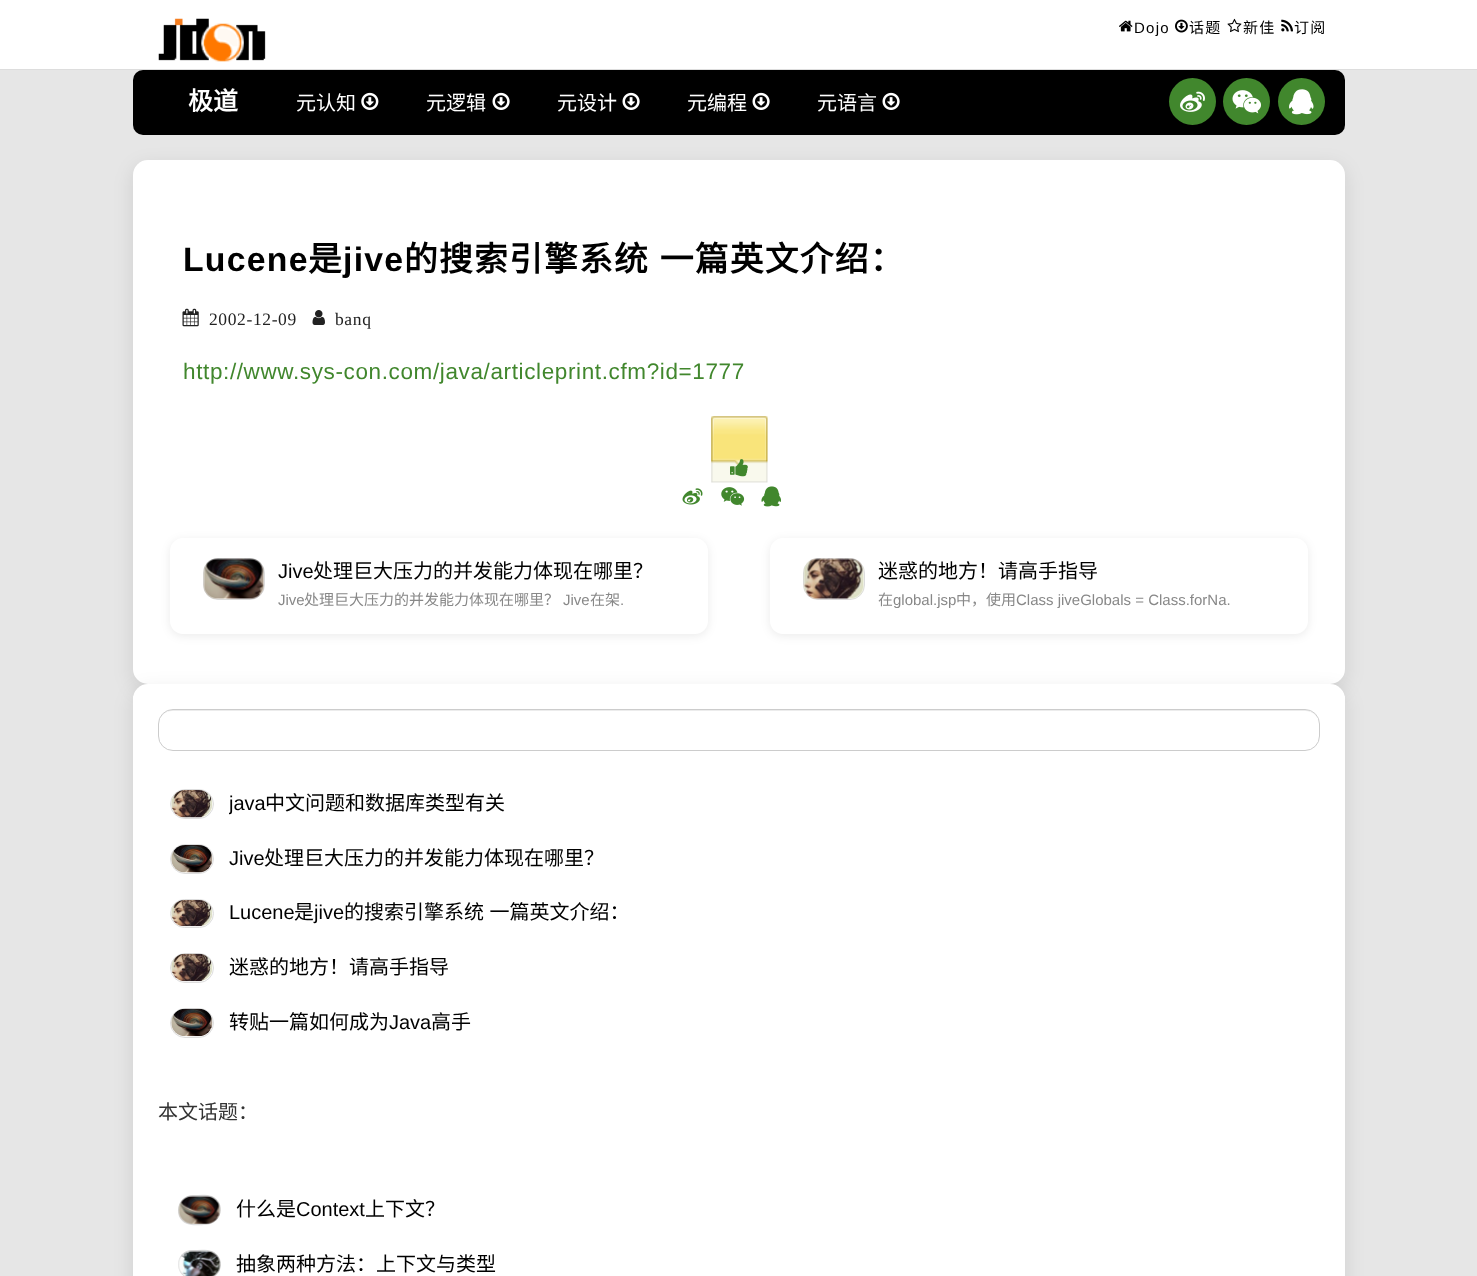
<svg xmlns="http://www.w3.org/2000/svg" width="1477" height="1276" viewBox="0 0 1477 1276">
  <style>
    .t1 { font: 15px Liberation Sans; letter-spacing: 1.25px; fill: #000; }
    .t2 { font: 15px Noto Sans CJK SC; letter-spacing: 1.25px; fill: #000; }
    .t3 { font: bold 25px Noto Sans CJK SC; fill: #fff; }
    .t4 { font: 20px Noto Sans CJK SC; fill: #fff; }
    .t5 { font: bold 33.75px Liberation Sans; letter-spacing: 1.25px; fill: #000; }
    .t6 { font: bold 33.75px Noto Sans CJK SC; letter-spacing: 1.25px; fill: #000; }
    .t7 { font: 17.5px Liberation Serif; letter-spacing: 0.62px; fill: #222; }
    .t8 { font: 22.5px Liberation Sans; letter-spacing: 0.62px; fill: #41872d; }
    .t9 { font: 20px Liberation Sans; fill: #000; }
    .t10 { font: 20px Noto Sans CJK SC; fill: #000; }
    .t11 { font: 15px Liberation Sans; fill: #888; }
    .t12 { font: 15px Noto Sans CJK SC; fill: #888; }
    .t13 { font: 20px Noto Sans CJK SC; fill: #333; }
  </style>
  <defs>
    <clipPath id="clip1"><path d="M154 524H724V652H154ZM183 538H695C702 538 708 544 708 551V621C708 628 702 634 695 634H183C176 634 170 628 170 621V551C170 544 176 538 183 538Z" clip-rule="evenodd"/></clipPath>
    <clipPath id="clip2"><path d="M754 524H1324V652H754ZM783 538H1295C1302 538 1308 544 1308 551V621C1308 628 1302 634 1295 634H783C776 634 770 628 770 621V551C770 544 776 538 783 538Z" clip-rule="evenodd"/></clipPath>
    <clipPath id="clip3"><rect x="133" y="684" width="1212" height="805" rx="15"/></clipPath>
    <clipPath id="clip4"><rect x="229" y="790" width="1079" height="28"/></clipPath>
  </defs>
  <rect width="100%" height="100%" fill="#e6e6e6"/>
  <rect x="0" y="0" width="1477" height="69" fill="#fff"/>
  <rect x="0" y="69" width="1477" height="1" fill="#ddd"/>
  <image x="158" y="18" width="108" height="44" href="images/1.png"/>
  <image x="1119" y="20" width="14" height="12" href="images/2.png"/>
  <text x="1134" y="33" class="t1">Dojo</text>
  <image x="1175" y="19" width="13" height="14" href="images/3.png"/>
  <text x="1189" y="33" class="t2">话题</text>
  <image x="1227" y="18" width="15" height="15" href="images/4.png"/>
  <text x="1243" y="33" class="t2">新佳</text>
  <image x="1281" y="19" width="12" height="13" href="images/5.png"/>
  <text x="1294" y="33" class="t2">订阅</text>
  <rect x="133" y="70" width="1212" height="65" rx="10" fill="#000"/>
  <text x="188" y="110" class="t3">极道</text>
  <text x="296" y="110" class="t4">元认知</text>
  <image x="361" y="92" width="18" height="18" href="images/6.png"/>
  <text x="426" y="110" class="t4">元逻辑</text>
  <image x="492" y="92" width="18" height="18" href="images/7.png"/>
  <text x="557" y="110" class="t4">元设计</text>
  <image x="622" y="92" width="18" height="18" href="images/7.png"/>
  <text x="687" y="110" class="t4">元编程</text>
  <image x="752" y="92" width="18" height="18" href="images/7.png"/>
  <text x="817" y="110" class="t4">元语言</text>
  <image x="882" y="92" width="18" height="18" href="images/7.png"/>
  <circle cx="1192.5" cy="101.5" r="23.5" fill="#41872d"/>
  <image x="1180" y="91" width="25" height="21" href="images/8.png"/>
  <circle cx="1246.5" cy="101.5" r="23.5" fill="#41872d"/>
  <image x="1232" y="90" width="29" height="24" href="images/9.png"/>
  <circle cx="1301.5" cy="101.5" r="23.5" fill="#41872d"/>
  <image x="1289" y="89" width="25" height="26" href="images/10.png"/>
  <rect x="133" y="166" width="1212" height="524" rx="15" fill="#0000001a" filter="blur(9.5px)"/>
  <rect x="133" y="160" width="1212" height="524" rx="15" fill="#fff"/>
  <text x="183" y="271" class="t5">Lucene</text>
  <text x="308" y="271" class="t6">是</text>
  <text x="343" y="271" class="t5">jive</text>
  <text x="404" y="271" word-spacing="2" class="t6">的搜索引擎系统 一篇英文介绍：</text>
  <image x="182" y="308" width="17" height="19" href="images/11.png"/>
  <text x="209" y="325" class="t7">2002-12-09</text>
  <image x="312" y="310" width="13" height="15" href="images/12.png"/>
  <text x="335" y="325" class="t7">banq</text>
  <text x="183" y="379" class="t8">http://www.sys-con.com/java/articleprint.cfm?id=1777</text>
  <image x="711" y="416" width="57" height="67" href="images/13.png"/>
  <image x="730" y="459" width="18" height="18" href="images/14.png"/>
  <image x="682" y="488" width="21" height="17" href="images/15.png"/>
  <image x="721" y="487" width="24" height="19" href="images/16.png"/>
  <image x="761" y="486" width="20" height="21" href="images/17.png"/>
  <g clip-path="url(#clip1)">
    <rect x="170" y="540" width="538" height="96" rx="13" fill="#00000014" filter="blur(5px)"/>
  </g>
  <rect x="203.5" y="558.5" width="61" height="41" rx="14.5" fill="none" stroke="#ddd"/>
  <image x="203" y="558" width="61" height="42" href="images/18.png"/>
  <text x="278" y="578" class="t9">Jive</text>
  <text x="313" y="578" class="t10">处理巨大压力的并发能力体现在哪里？</text>
  <text x="278" y="605" class="t11">Jive</text>
  <text x="304" y="605" class="t12">处理巨大压力的并发能力体现在哪里？</text>
  <text x="563" y="605" class="t11">Jive</text>
  <text x="590" y="605" class="t12">在架</text>
  <text x="620" y="605" class="t11">.</text>
  <g clip-path="url(#clip2)">
    <rect x="770" y="540" width="538" height="96" rx="13" fill="#00000014" filter="blur(5px)"/>
  </g>
  <rect x="803.5" y="558.5" width="61" height="41" rx="14.5" fill="none" stroke="#ddd"/>
  <image x="803" y="558" width="61" height="42" href="images/19.png"/>
  <text x="878" y="578" class="t10">迷惑的地方！请高手指导</text>
  <text x="878" y="605" class="t12">在</text>
  <text x="893" y="605" class="t11">global.jsp</text>
  <text x="956" y="605" class="t12">中，使用</text>
  <text x="1016" y="605" class="t11">Class jiveGlobals = Class.forNa.</text>
  <rect x="133" y="690" width="1212" height="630" rx="15" fill="#0000001a" filter="blur(9.5px)"/>
  <rect x="133" y="684" width="1212" height="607" rx="15" fill="#fff"/>
  <g clip-path="url(#clip3)">
    <rect x="133" y="696" width="1212" height="68" fill="#fff"/>
  </g>
  <path d="M172 711H1305C1313 711 1319 717 1319 725C1319 717 1313 710 1305 710H173C165 710 159 717 159 725C159 717 165 711 172 711Z" fill="#ececec"/>
  <rect x="158.5" y="709.5" width="1161" height="41" rx="14.5" fill="none" stroke="#ccc"/>
  <rect x="170.5" y="789.5" width="43" height="29" rx="14.5" fill="none" stroke="#ddd"/>
  <image x="171" y="790" width="42" height="28" href="images/20.png"/>
  <g clip-path="url(#clip4)">
    <text x="229" y="810" class="t9">java</text>
  </g>
  <text x="265" y="810" class="t10">中文问题和数据库类型有关</text>
  <rect x="170.5" y="844.5" width="43" height="29" rx="14.5" fill="none" stroke="#ddd"/>
  <image x="171" y="845" width="42" height="28" href="images/21.png"/>
  <text x="229" y="865" class="t9">Jive</text>
  <text x="264" y="865" class="t10">处理巨大压力的并发能力体现在哪里？</text>
  <rect x="170.5" y="899.5" width="43" height="28" rx="14" fill="none" stroke="#ddd"/>
  <image x="171" y="900" width="42" height="27" href="images/22.png"/>
  <text x="229" y="919" class="t9">Lucene</text>
  <text x="294" y="919" class="t10">是</text>
  <text x="314" y="919" class="t9">jive</text>
  <text x="344" y="919" word-spacing="1" class="t10">的搜索引擎系统 一篇英文介绍：</text>
  <rect x="170.5" y="953.5" width="43" height="29" rx="14.5" fill="none" stroke="#ddd"/>
  <image x="171" y="953" width="42" height="29" href="images/23.png"/>
  <text x="229" y="974" class="t10">迷惑的地方！请高手指导</text>
  <rect x="170.5" y="1008.5" width="43" height="29" rx="14.5" fill="none" stroke="#ddd"/>
  <image x="171" y="1008" width="42" height="29" href="images/24.png"/>
  <text x="229" y="1029" class="t10">转贴一篇如何成为</text>
  <text x="389" y="1029" class="t9">Java</text>
  <text x="431" y="1029" class="t10">高手</text>
  <text x="158" y="1119" class="t13">本文话题：</text>
  <path d="M193 1195C199 1195 206 1194 212 1196C227 1203 222 1224 206 1225C201 1225 192 1226 187 1224C172 1218 177 1195 193 1195Z" fill="#ddd"/>
  <image x="178" y="1195" width="43" height="29" href="images/25.png"/>
  <text x="236" y="1216" class="t10">什么是</text>
  <text x="296" y="1216" class="t9">Context</text>
  <text x="365" y="1216" class="t10">上下文？</text>
  <path d="M192 1250C199 1250 206 1249 212 1251C224 1256 224 1273 212 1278C207 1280 198 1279 192 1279C173 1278 174 1250 192 1250Z" fill="#ddd"/>
  <image x="178" y="1250" width="43" height="26" href="images/26.png"/>
  <text x="236" y="1271" class="t10">抽象两种方法：上下文与类型</text>
</svg>
